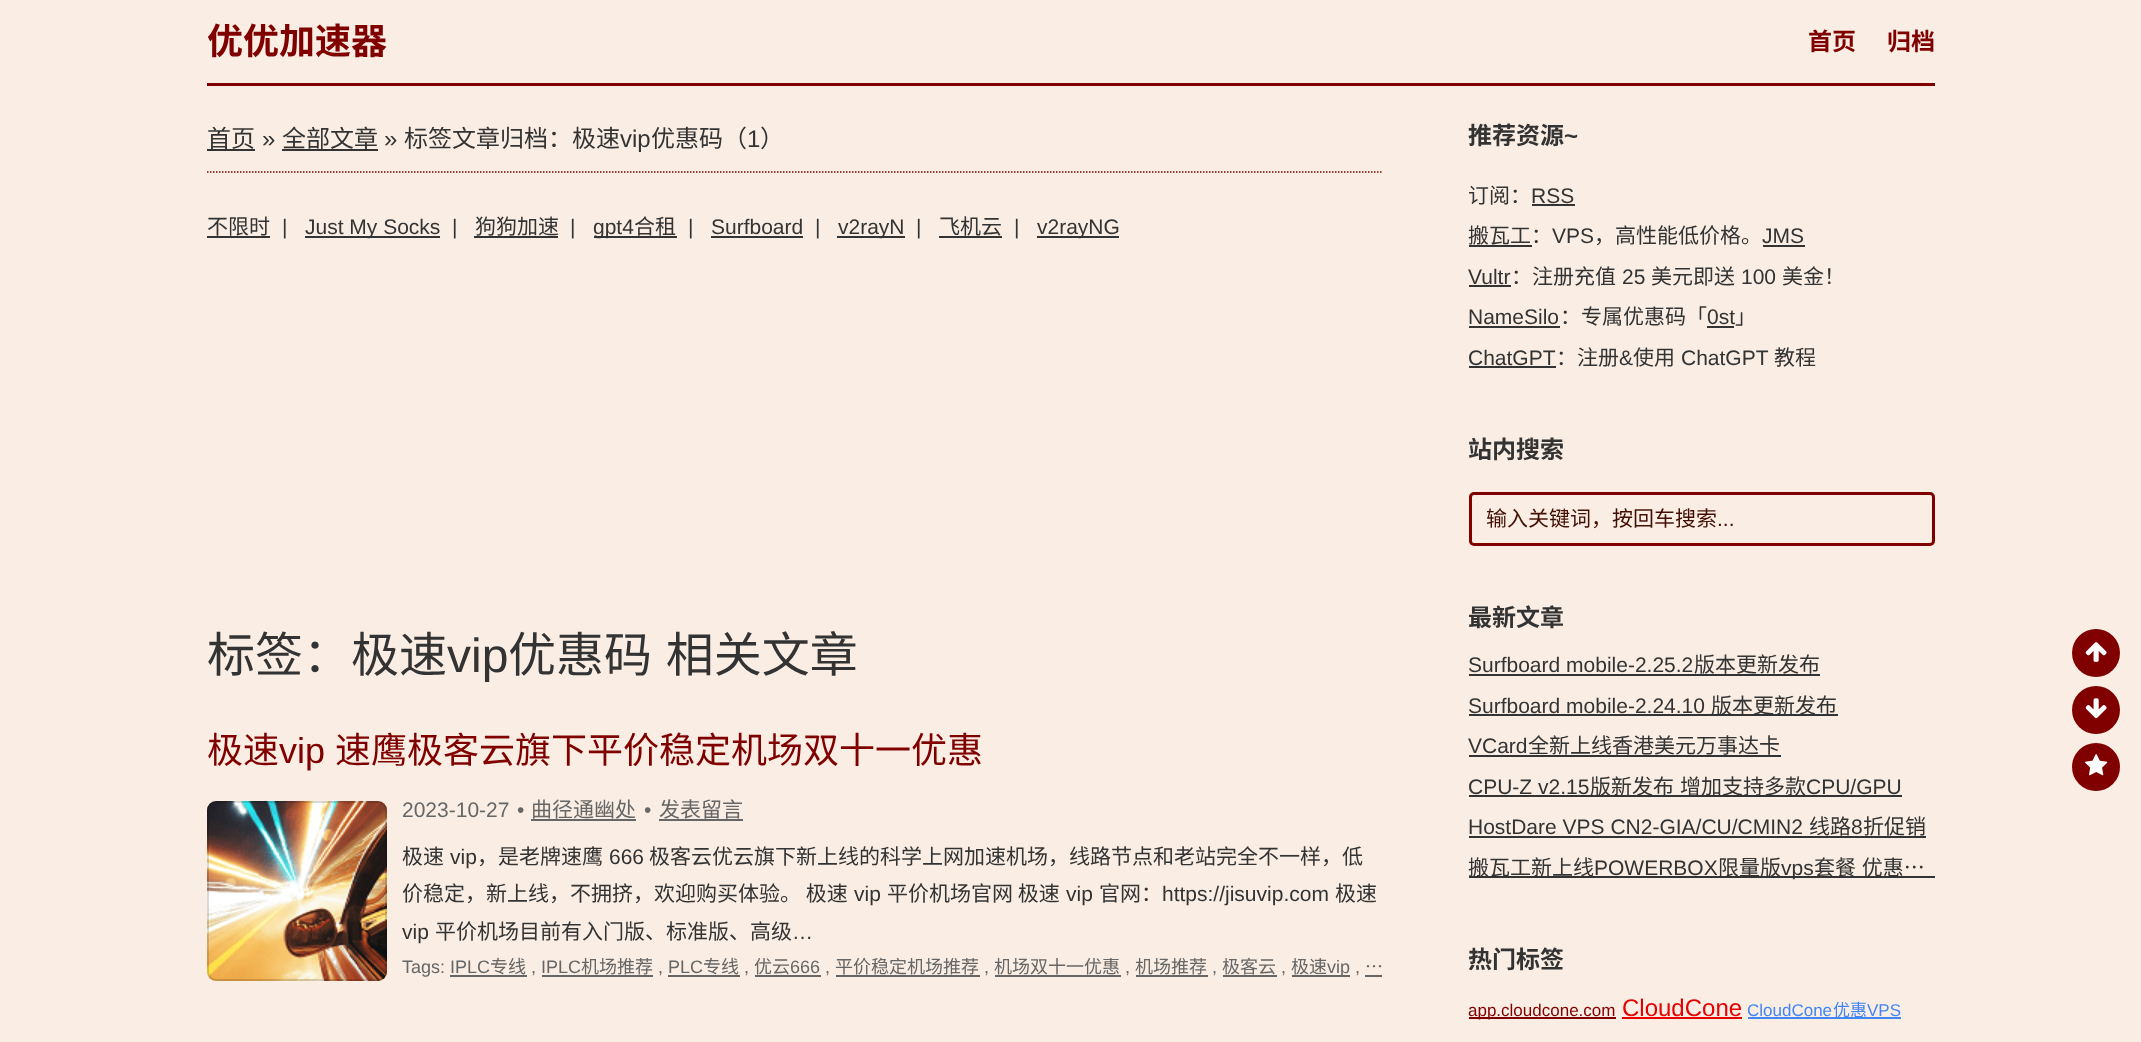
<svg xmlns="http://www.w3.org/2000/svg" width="2141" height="1042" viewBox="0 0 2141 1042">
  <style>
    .t1 { font: bold 36px Noto Sans CJK SC; fill: #800000; }
    .t2 { font: bold 24px Noto Sans CJK SC; fill: #800000; }
    .t3 { font: 24px Noto Sans CJK SC; fill: #333; }
    .t4 { font: 24px Liberation Sans; fill: #333; }
    .t5 { font: 21px Noto Sans CJK SC; fill: #333; }
    .t6 { font: 21px Liberation Sans; fill: #333; }
    .t7 { font: 48px Noto Sans CJK SC; fill: #333; }
    .t8 { font: 48px Liberation Sans; fill: #333; }
    .t9 { font: 36px Noto Sans CJK SC; fill: #800000; }
    .t10 { font: 36px Liberation Sans; fill: #800000; }
    .t11 { font: 21px Liberation Sans; fill: #666; }
    .t12 { font: 21px Noto Sans CJK SC; fill: #666; }
    .t13 { font: 18px Liberation Sans; fill: #666; }
    .t14 { font: 18px Noto Sans CJK SC; fill: #666; }
    .t15 { font: bold 24px Noto Sans CJK SC; fill: #333; }
    .t16 { font: bold 24px Liberation Sans; fill: #333; }
    .t17 { font: 21px Noto Sans CJK SC; fill: #430f02; }
    .t18 { font: 21px Liberation Sans; fill: #430f02; }
    .t19 { font: 17px Liberation Sans; fill: #800000; }
    .t20 { font: 24px Liberation Sans; fill: #e60000; }
    .t21 { font: 17px Liberation Sans; fill: #4285f4; }
    .t22 { font: 17px Noto Sans CJK SC; fill: #4285f4; }
  </style>
  <rect width="100%" height="100%" fill="#faeee4"/>
  <rect x="207" y="83" width="1728" height="3" fill="#800000"/>
  <text x="207" y="54" class="t1">优优加速器</text>
  <text x="1808" y="50" class="t2">首页</text>
  <text x="1887" y="50" class="t2">归档</text>
  <path d="M207 172H1381.5" fill="none" stroke="#800000" stroke-width="1.5" stroke-dasharray="1.5 1.5"/>
  <text x="207" y="147" class="t3">首页</text>
  <rect x="207" y="149" width="48" height="2" fill="#333"/>
  <text x="262" y="147" class="t4">»</text>
  <text x="282" y="147" class="t3">全部文章</text>
  <rect x="282" y="149" width="96" height="2" fill="#333"/>
  <text x="384" y="147" class="t4">»</text>
  <text x="404" y="147" class="t3">标签文章归档：极速</text>
  <text x="620" y="147" class="t4">vip</text>
  <text x="651" y="147" class="t3">优惠码（</text>
  <text x="747" y="147" class="t4">1</text>
  <text x="760" y="147" class="t3">）</text>
  <text x="207" y="234" class="t5">不限时</text>
  <rect x="207" y="236" width="63" height="2" fill="#333"/>
  <text x="282" y="234" class="t6">|</text>
  <rect x="305" y="236" width="135" height="2" fill="#333"/>
  <text x="305" y="234" class="t6">Just My Socks</text>
  <text x="452" y="234" class="t6">|</text>
  <text x="475" y="234" class="t5">狗狗加速</text>
  <rect x="474" y="236" width="84" height="2" fill="#333"/>
  <text x="570" y="234" class="t6">|</text>
  <rect x="594" y="236" width="83" height="2" fill="#333"/>
  <text x="593" y="234" class="t6">gpt4</text>
  <text x="634" y="234" class="t5">合租</text>
  <text x="688" y="234" class="t6">|</text>
  <text x="711" y="234" class="t6">Surfboard</text>
  <rect x="711" y="236" width="92" height="2" fill="#333"/>
  <text x="815" y="234" class="t6">|</text>
  <rect x="837" y="236" width="68" height="2" fill="#333"/>
  <text x="838" y="234" class="t6">v2rayN</text>
  <text x="916" y="234" class="t6">|</text>
  <text x="939" y="234" class="t5">飞机云</text>
  <rect x="939" y="236" width="63" height="2" fill="#333"/>
  <text x="1014" y="234" class="t6">|</text>
  <rect x="1037" y="236" width="82" height="2" fill="#333"/>
  <text x="1037" y="234" class="t6">v2rayNG</text>
  <text x="207" y="672" class="t7">标签：极速</text>
  <text x="447" y="672" class="t8">vip</text>
  <text x="508" y="672" word-spacing="3" class="t7">优惠码 相关文章</text>
  <text x="207" y="763" class="t9">极速</text>
  <text x="279" y="763" class="t10">vip</text>
  <text x="335" y="763" class="t9">速鹰极客云旗下平价稳定机场双十一优惠</text>
  <rect x="207" y="801" width="180" height="180" rx="9" fill="#f0f0f0"/>
  <image x="207" y="801" width="180" height="180" href="images/1.png"/>
  <rect x="208" y="802" width="178" height="178" rx="8" fill="none" stroke="#00000026" stroke-width="2"/>
  <text x="402" y="817" class="t11">2023-10-27</text>
  <text x="517" y="817" class="t11">•</text>
  <text x="531" y="817" class="t12">曲径通幽处</text>
  <rect x="531" y="819" width="105" height="2" fill="#666"/>
  <text x="644" y="817" class="t11">•</text>
  <text x="659" y="817" class="t12">发表留言</text>
  <rect x="659" y="819" width="84" height="2" fill="#666"/>
  <text x="402" y="864" class="t5">极速</text>
  <text x="450" y="864" class="t6">vip</text>
  <text x="477" y="864" class="t5">，是老牌速鹰</text>
  <text x="609" y="864" class="t6">666</text>
  <text x="649" y="864" class="t5">极客云优云旗下新上线的科学上网加速机场，线路节点和老站完全不一样，低</text>
  <text x="402" y="901" class="t5">价稳定，新上线，不拥挤，欢迎购买体验。 极速</text>
  <text x="854" y="901" class="t6">vip</text>
  <text x="887" y="901" class="t5">平价机场官网 极速</text>
  <text x="1066" y="901" class="t6">vip</text>
  <text x="1099" y="901" class="t5">官网：</text>
  <text x="1162" y="901" class="t6">https://jisuvip.com</text>
  <text x="1335" y="901" class="t5">极速</text>
  <text x="402" y="939" class="t6">vip</text>
  <text x="435" y="939" class="t5">平价机场目前有入门版、标准版、高级</text>
  <text x="792" y="939" class="t6">…</text>
  <text x="402" y="973" class="t13">Tags: IPLC</text>
  <text x="490" y="973" class="t14">专线</text>
  <rect x="450" y="975" width="77" height="2" fill="#666"/>
  <text x="531" y="973" class="t13">, IPLC</text>
  <text x="581" y="973" class="t14">机场推荐</text>
  <rect x="542" y="975" width="111" height="2" fill="#666"/>
  <text x="658" y="973" class="t13">, PLC</text>
  <text x="703" y="973" class="t14">专线</text>
  <rect x="668" y="975" width="72" height="2" fill="#666"/>
  <text x="754" y="973" class="t14">优云</text>
  <rect x="755" y="975" width="66" height="2" fill="#666"/>
  <text x="790" y="973" class="t13">666 ,</text>
  <text x="835" y="973" class="t14">平价稳定机场推荐</text>
  <rect x="836" y="975" width="144" height="2" fill="#666"/>
  <text x="994" y="973" class="t14">机场双十一优惠</text>
  <rect x="995" y="975" width="126" height="2" fill="#666"/>
  <text x="1135" y="973" class="t14">机场推荐</text>
  <rect x="1136" y="975" width="72" height="2" fill="#666"/>
  <text x="1222" y="973" class="t14">极客云</text>
  <rect x="1223" y="975" width="54" height="2" fill="#666"/>
  <text x="1291" y="973" class="t14">极速</text>
  <rect x="1292" y="975" width="58" height="2" fill="#666"/>
  <text x="1327" y="973" class="t13">vip ,</text>
  <text x="1365" y="973" class="t14">…</text>
  <rect x="1365" y="975" width="17" height="2" fill="#666"/>
  <text x="744" y="973" class="t13">,</text>
  <text x="984" y="973" class="t13">,</text>
  <text x="1125" y="973" class="t13">,</text>
  <text x="1212" y="973" class="t13">,</text>
  <text x="1281" y="973" class="t13">,</text>
  <text x="1468" y="144" class="t15">推荐资源</text>
  <text x="1564" y="144" class="t16">~</text>
  <text x="1468" y="203" class="t5">订阅：</text>
  <text x="1531" y="203" class="t6">RSS</text>
  <rect x="1532" y="204" width="43" height="2" fill="#333"/>
  <text x="1468" y="243" class="t5">搬瓦工：</text>
  <rect x="1469" y="245" width="63" height="2" fill="#333"/>
  <text x="1552" y="243" class="t6">VPS</text>
  <text x="1594" y="243" class="t5">，高性能低价格。️</text>
  <text x="1762" y="243" class="t6">JMS</text>
  <rect x="1763" y="245" width="42" height="2" fill="#333"/>
  <text x="1468" y="284" class="t6">Vultr</text>
  <rect x="1469" y="285" width="42" height="2" fill="#333"/>
  <text x="1511" y="284" class="t5">：注册充值</text>
  <text x="1622" y="284" class="t6">25</text>
  <text x="1651" y="284" class="t5">美元即送</text>
  <text x="1741" y="284" class="t6">100</text>
  <text x="1782" y="284" class="t5">美金！</text>
  <text x="1468" y="324" class="t6">NameSilo</text>
  <rect x="1469" y="326" width="91" height="2" fill="#333"/>
  <text x="1560" y="324" class="t5">：专属优惠码「</text>
  <text x="1707" y="324" class="t6">0st</text>
  <rect x="1707" y="326" width="27" height="2" fill="#333"/>
  <text x="1735" y="324" class="t5">」</text>
  <text x="1468" y="365" class="t6">ChatGPT</text>
  <rect x="1469" y="366" width="87" height="2" fill="#333"/>
  <text x="1556" y="365" class="t5">：注册</text>
  <text x="1619" y="365" class="t6">&amp;</text>
  <text x="1633" y="365" class="t5">使用</text>
  <text x="1681" y="365" class="t6">ChatGPT</text>
  <text x="1774" y="365" class="t5">教程</text>
  <text x="1468" y="458" class="t15">站内搜索</text>
  <rect x="1470.5" y="493.5" width="463" height="51" rx="3.5" fill="none" stroke="#800000" stroke-width="3"/>
  <text x="1486" y="526" class="t17">输入关键词，按回车搜索</text>
  <text x="1717" y="526" class="t18">...</text>
  <text x="1468" y="626" class="t15">最新文章</text>
  <text x="1468" y="672" class="t6">Surfboard mobile-2.25.2</text>
  <rect x="1469" y="674" width="351" height="2" fill="#333"/>
  <text x="1694" y="672" class="t5">版本更新发布</text>
  <text x="1468" y="713" class="t6">Surfboard mobile-2.24.10</text>
  <rect x="1469" y="714" width="369" height="2" fill="#333"/>
  <text x="1711" y="713" class="t5">版本更新发布</text>
  <text x="1468" y="753" class="t6">VCard</text>
  <rect x="1469" y="755" width="312" height="2" fill="#333"/>
  <text x="1528" y="753" class="t5">全新上线香港美元万事达卡</text>
  <text x="1468" y="794" class="t6">CPU-Z v2.15</text>
  <rect x="1469" y="795" width="433" height="2" fill="#333"/>
  <text x="1590" y="794" class="t5">版新发布</text>
  <text x="1680" y="794" class="t5">增加支持多款</text>
  <text x="1806" y="794" class="t6">CPU/GPU</text>
  <text x="1468" y="834" class="t6">HostDare VPS CN2-GIA/CU/CMIN2</text>
  <text x="1809" y="834" class="t5">线路</text>
  <text x="1851" y="834" class="t6">8</text>
  <rect x="1469" y="836" width="457" height="2" fill="#333"/>
  <text x="1863" y="834" class="t5">折促销</text>
  <rect x="1469" y="876" width="466" height="2" fill="#333"/>
  <text x="1468" y="875" class="t5">搬瓦工新上线</text>
  <text x="1594" y="875" class="t6">POWERBOX</text>
  <text x="1718" y="875" class="t5">限量版</text>
  <text x="1781" y="875" class="t6">vps</text>
  <text x="1814" y="875" word-spacing="1" class="t5">套餐 优惠…</text>
  <text x="1468" y="968" class="t15">热门标签</text>
  <rect x="1469" y="1017" width="147" height="2" fill="#800000"/>
  <text x="1468" y="1016" class="t19">app.cloudcone.com</text>
  <text x="1622" y="1016" class="t20">CloudCone</text>
  <rect x="1622" y="1017" width="120" height="2" fill="#e60000"/>
  <text x="1747" y="1016" class="t21">CloudCone</text>
  <rect x="1748" y="1017" width="153" height="2" fill="#4285f4"/>
  <text x="1833" y="1016" class="t22">优惠</text>
  <text x="1867" y="1016" class="t21">VPS</text>
  <circle cx="2096" cy="653" r="24" fill="#800000"/>
  <image x="2085" y="642" width="22" height="20" href="images/2.png"/>
  <circle cx="2096" cy="710" r="24" fill="#800000"/>
  <image x="2085" y="698" width="22" height="21" href="images/3.png"/>
  <circle cx="2096" cy="767" r="24" fill="#800000"/>
  <image x="2085" y="754" width="23" height="22" href="images/4.png"/>
</svg>
